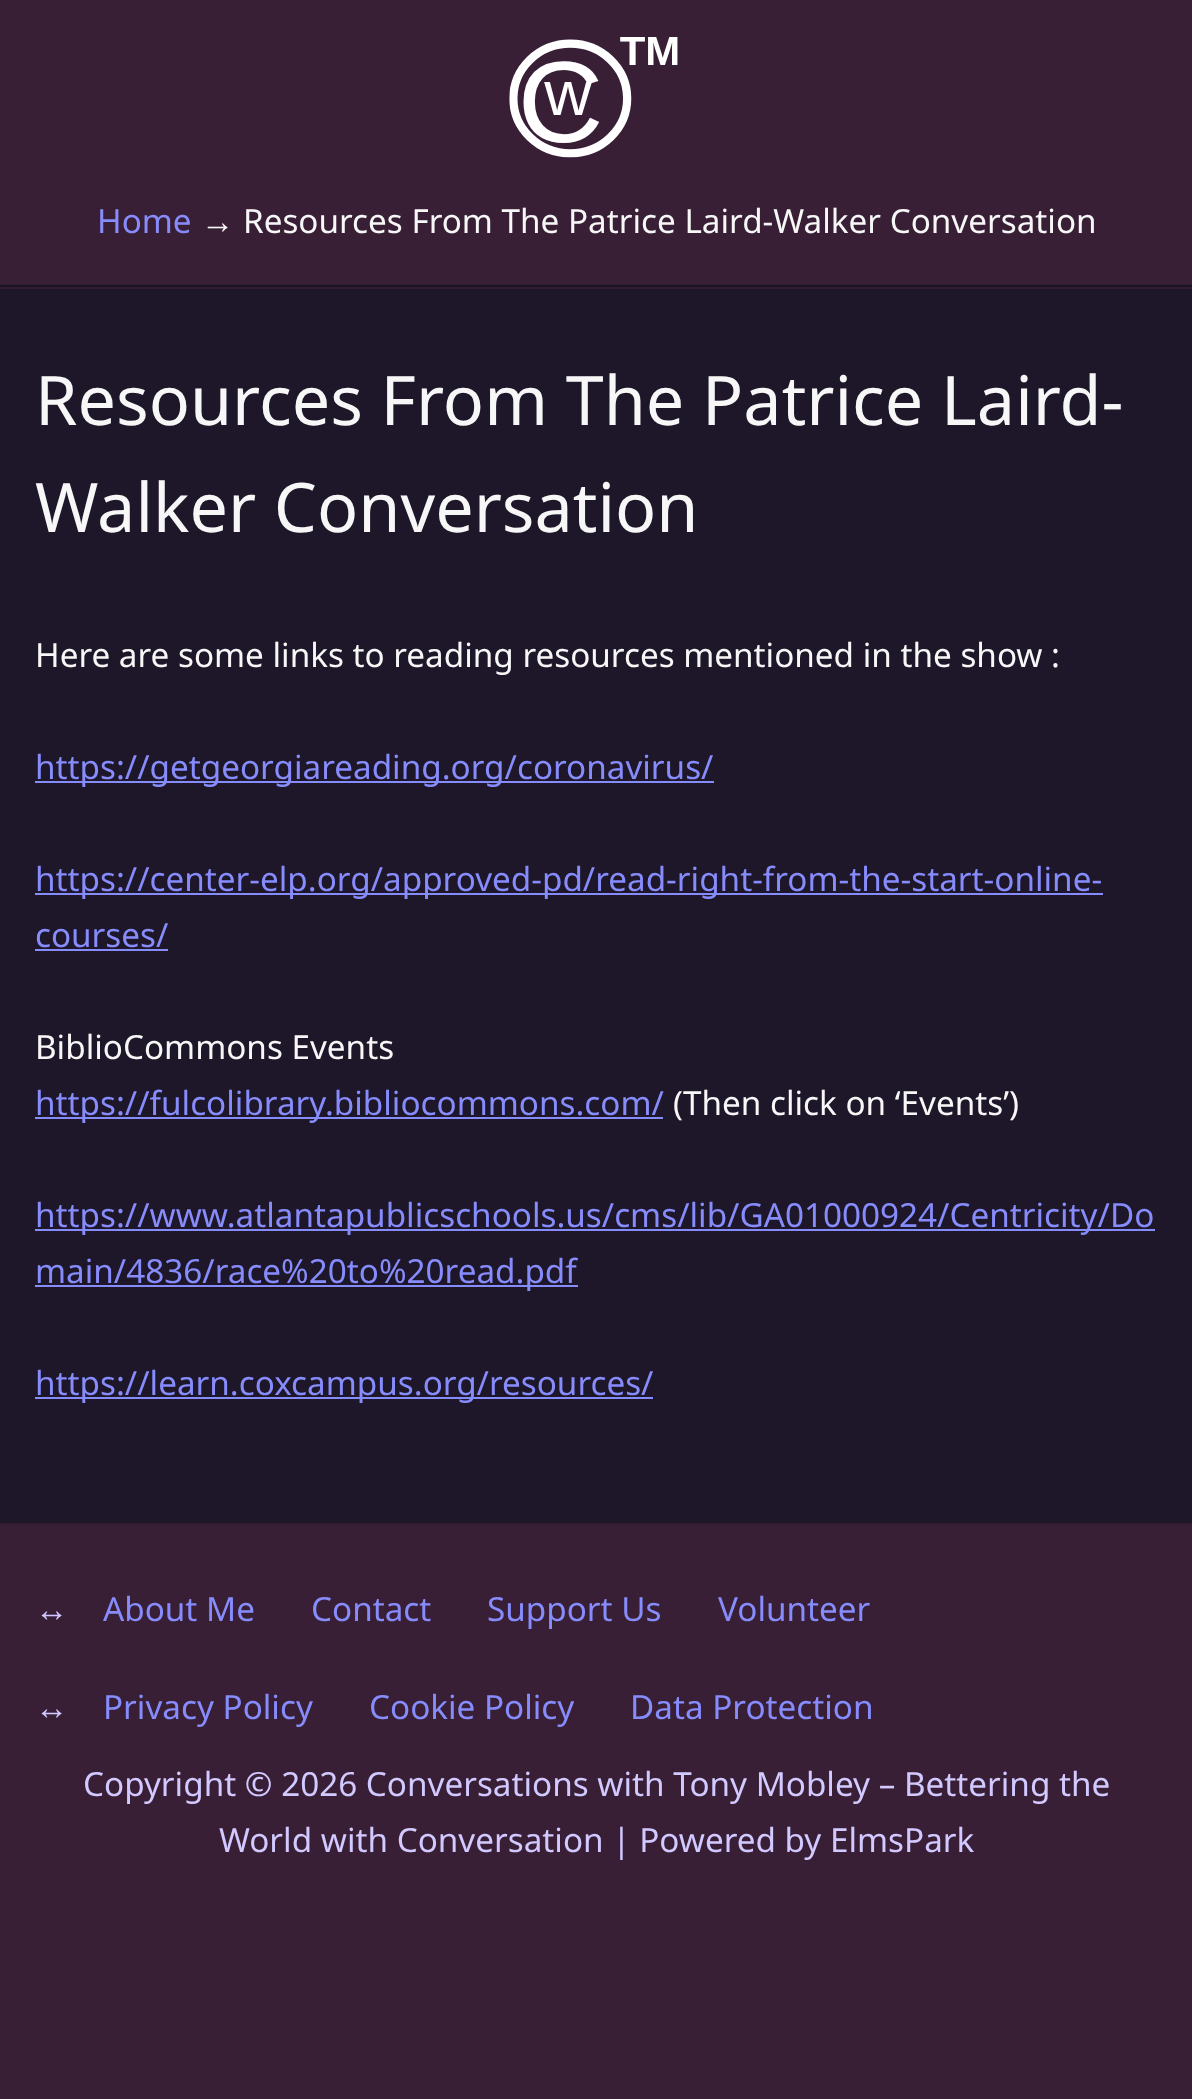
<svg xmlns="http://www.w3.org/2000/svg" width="1192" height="2099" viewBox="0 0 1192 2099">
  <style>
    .t1 { font: 33.25px Noto Sans; fill: #878cfc; }
    .t2 { font: 33.25px Liberation Sans; fill: #f7f7f7; }
    .t3 { font: 33.25px Noto Sans; fill: #f7f7f7; }
    .t4 { font: 68.25px Noto Sans; fill: #f7f7f7; }
    .t5 { font: 33.25px Liberation Sans; fill: #d1c9ff; }
    .t6 { font: 33.25px Noto Sans; fill: #d1c9ff; }
  </style>
  <rect width="100%" height="100%" fill="#381f35"/>
  <rect x="0" y="284" width="1192" height="1" fill="#321c30"/>
  <image x="509" y="37" width="169" height="121" href="images/1.png"/>
  <text x="97" y="233" class="t1">Home</text>
  <text x="201" y="233" class="t2">→</text>
  <text x="243" y="233" class="t3">Resources From The Patrice Laird-Walker Conversation</text>
  <rect x="0" y="285" width="1192" height="2" fill="#1b1425"/>
  <rect x="0" y="287" width="1192" height="2" fill="#321c30"/>
  <rect x="0" y="289" width="1192" height="1234" fill="#1e1629"/>
  <text x="35" y="425" class="t4">Resources From The Patrice Laird-</text>
  <text x="35" y="532" class="t4">Walker Conversation</text>
  <text x="35" y="667" class="t3">Here are some links to reading resources mentioned in the show :</text>
  <rect x="35" y="781" width="679" height="2" fill="#878cfc"/>
  <text x="35" y="779" class="t1">https://getgeorgiareading.org/coronavirus/</text>
  <rect x="35" y="893" width="1068" height="2" fill="#878cfc"/>
  <text x="35" y="891" class="t1">https://center-elp.org/approved-pd/read-right-from-the-start-online-</text>
  <text x="35" y="947" class="t1">courses/</text>
  <rect x="35" y="949" width="133" height="2" fill="#878cfc"/>
  <text x="35" y="1059" class="t3">BiblioCommons Events</text>
  <rect x="35" y="1117" width="628" height="2" fill="#878cfc"/>
  <text x="35" y="1115" class="t1">https://fulcolibrary.bibliocommons.com/</text>
  <text x="673" y="1115" class="t3">(Then click on ‘Events’)</text>
  <rect x="35" y="1229" width="1120" height="2" fill="#878cfc"/>
  <text x="35" y="1227" class="t1">https://www.atlantapublicschools.us/cms/lib/GA01000924/Centricity/Do</text>
  <rect x="35" y="1285" width="543" height="2" fill="#878cfc"/>
  <text x="35" y="1283" class="t1">main/4836/race%20to%20read.pdf</text>
  <rect x="35" y="1397" width="618" height="2" fill="#878cfc"/>
  <text x="35" y="1395" class="t1">https://learn.coxcampus.org/resources/</text>
  <rect x="0" y="1523" width="1192" height="2" fill="#321c30"/>
  <text x="35" y="1621" class="t5">↔</text>
  <text x="103" y="1621" class="t1">About Me</text>
  <text x="311" y="1621" class="t1">Contact</text>
  <text x="487" y="1621" class="t1">Support Us</text>
  <text x="718" y="1621" class="t1">Volunteer</text>
  <text x="35" y="1719" class="t5">↔</text>
  <text x="103" y="1719" class="t1">Privacy Policy</text>
  <text x="369" y="1719" class="t1">Cookie Policy</text>
  <text x="630" y="1719" class="t1">Data Protection</text>
  <text x="83" y="1796" class="t6">Copyright © 2026 Conversations with Tony Mobley – Bettering the</text>
  <text x="219" y="1852" class="t6">World with Conversation | Powered by ElmsPark</text>
</svg>
